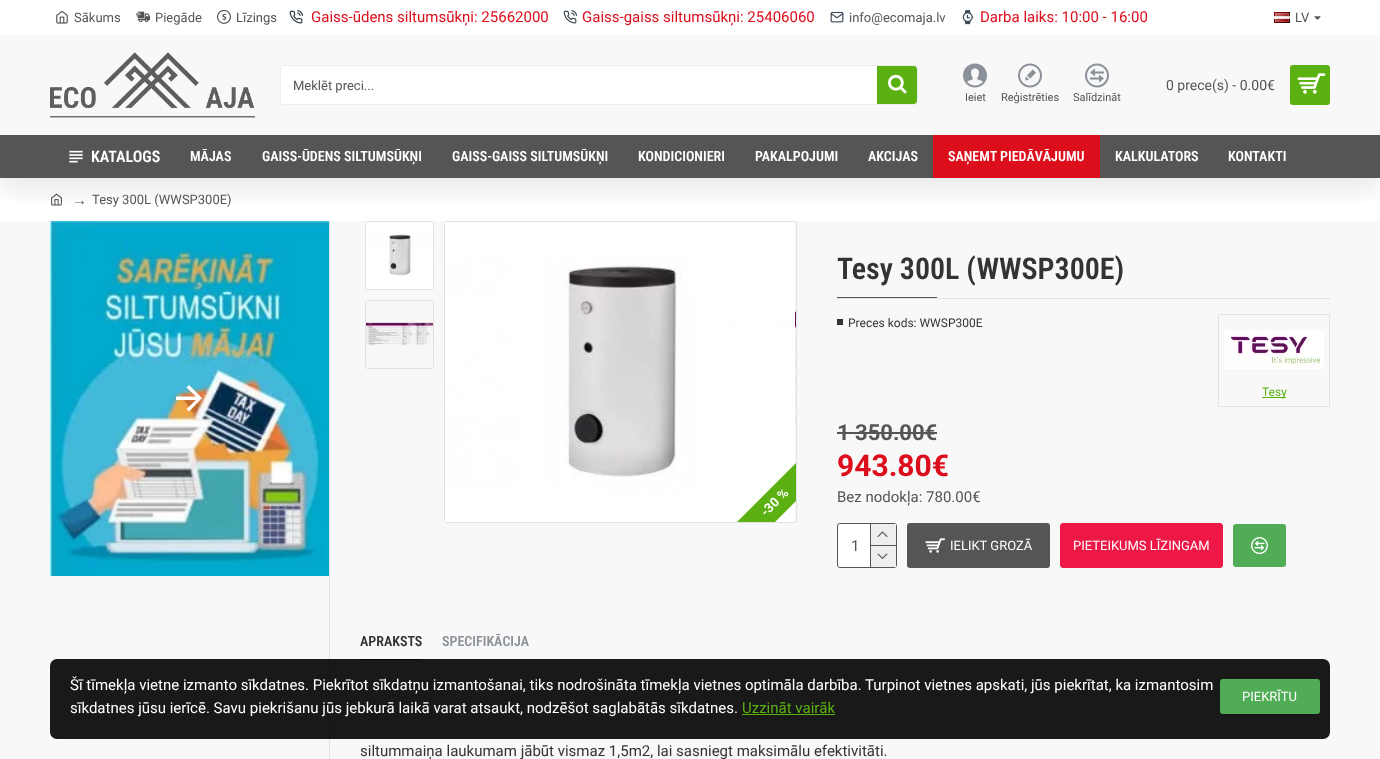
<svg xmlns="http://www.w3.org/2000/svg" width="1380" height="759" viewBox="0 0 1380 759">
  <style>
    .t1 { font: 13px Roboto; fill: #555; }
    .t2 { font: 15px Roboto; fill: #dd0e1c; }
    .t3 { font: 14px Roboto; fill: #555; }
    .t4 { font: 11px Roboto; fill: #555; }
    .t5 { font: 600 16px Roboto Condensed; fill: #fff; }
    .t6 { font: 600 14px Roboto Condensed; fill: #fff; }
    .t7 { font: 15px Liberation Serif; fill: #555; }
    .t8 { font: bold 13px Roboto; fill: #fff; }
    .t9 { font: 600 30px Roboto Condensed; fill: #333; }
    .t10 { font: 12px Roboto; fill: #333; }
    .t11 { font: 12px Roboto; fill: #5bb112; }
    .t12 { font: bold 22px Roboto; fill: #555; }
    .t13 { font: bold 30px Roboto; fill: #dd0e1c; }
    .t14 { font: 15px Roboto; fill: #555; }
    .t15 { font: 13px Roboto; fill: #fff; }
    .t16 { font: 600 14px Roboto Condensed; fill: #333; }
    .t17 { font: 600 14px Roboto Condensed; fill: #8b9198; }
    .t18 { font: 15px Roboto; fill: #333; }
    .t19 { font: 15px Roboto; fill: #fff; }
    .t20 { font: 15px Roboto; fill: #5bb112; }
  </style>
  <defs>
    <clipPath id="clip1"><rect x="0" y="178" width="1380" height="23"/></clipPath>
  </defs>
  <rect width="100%" height="100%" fill="#f8f8f8"/>
  <rect x="0" y="178" width="1380" height="43" fill="#fff"/>
  <image x="51" y="193" width="11" height="13" href="images/17.png"/>
  <rect x="329" y="221" width="1" height="538" fill="#e2e2e2"/>
  <image x="50" y="221" width="279" height="355" href="images/18.png"/>
  <rect x="365.5" y="221.5" width="68" height="68" rx="2.5" fill="none" stroke="#e2e2e2"/>
  <image x="366" y="222" width="67" height="67" href="images/19.png"/>
  <rect x="444.5" y="221.5" width="352" height="301" rx="2.5" fill="none" stroke="#e2e2e2"/>
  <image x="445" y="222" width="350" height="300" href="images/21.png"/>
  <g clip-path="url(#clip1)">
    <rect x="0" y="10" width="1380" height="178" fill="#0000001a" filter="blur(15px)"/>
  </g>
  <rect x="0" y="0" width="1380" height="35" fill="#fff"/>
  <image x="56" y="10" width="12" height="14" href="images/1.png"/>
  <text x="74" y="22" class="t1">Sākums</text>
  <image x="136" y="11" width="14" height="12" href="images/2.png"/>
  <text x="155" y="22" class="t1">Piegāde</text>
  <image x="217" y="9" width="14" height="15" href="images/3.png"/>
  <text x="236" y="22" class="t1">Līzings</text>
  <image x="289" y="10" width="14" height="14" href="images/4.png"/>
  <text x="311" y="22" class="t2">Gaiss-ūdens siltumsūkņi: 25662000</text>
  <image x="563" y="10" width="14" height="14" href="images/5.png"/>
  <text x="582" y="22" class="t2">Gaiss-gaiss siltumsūkņi: 25406060</text>
  <image x="830" y="11" width="14" height="12" href="images/6.png"/>
  <text x="849" y="22" class="t1">info@ecomaja.lv</text>
  <image x="962" y="10" width="12" height="15" href="images/7.png"/>
  <text x="980" y="22" class="t2">Darba laiks: 10:00 - 16:00</text>
  <image x="1274" y="12" width="16" height="11" href="images/8.png"/>
  <text x="1295" y="22" class="t1">LV</text>
  <image x="1314" y="16" width="7" height="4" href="images/9.png"/>
  <image x="50" y="52" width="205" height="66" href="images/10.png"/>
  <rect x="280.5" y="65.5" width="637" height="39" rx="2.5" fill="none" stroke="#eee"/>
  <path d="M284 66H877V104H284C282.5 104 281 102.5 281 101V69C281 67.5 282.5 66 284 66Z" fill="#fff"/>
  <text x="293" y="90" class="t1">Meklēt preci...</text>
  <path d="M877 66H914C915.5 66 917 67.5 917 69V101C917 102.5 915.5 104 914 104H877Z" fill="#5bb112"/>
  <image x="888" y="74" width="19" height="20" href="images/11.png"/>
  <text x="1166" y="90" class="t3">0 prece(s) - 0.00€</text>
  <rect x="1290" y="65" width="40" height="40" rx="3" fill="#5bb112"/>
  <image x="1297" y="73" width="29" height="21" href="images/12.png"/>
  <image x="963" y="63" width="24" height="25" href="images/13.png"/>
  <text x="965" y="101" class="t4">Ieiet</text>
  <image x="1018" y="63" width="24" height="25" href="images/14.png"/>
  <text x="1001" y="101" class="t4">Reģistrēties</text>
  <image x="1085" y="63" width="24" height="25" href="images/15.png"/>
  <text x="1073" y="101" class="t4">Salīdzināt</text>
  <rect x="0" y="135" width="1380" height="43" fill="#555"/>
  <image x="69" y="150" width="14" height="13" href="images/16.png"/>
  <text x="91" y="162" class="t5">KATALOGS</text>
  <text x="190" y="161" class="t6">MĀJAS</text>
  <text x="262" y="161" class="t6">GAISS-ŪDENS SILTUMSŪKŅI</text>
  <text x="452" y="161" class="t6">GAISS-GAISS SILTUMSŪKŅI</text>
  <text x="638" y="161" class="t6">KONDICIONIERI</text>
  <text x="755" y="161" class="t6">PAKALPOJUMI</text>
  <text x="868" y="161" class="t6">AKCIJAS</text>
  <rect x="933" y="135" width="167" height="43" fill="#dd0e1c"/>
  <text x="948" y="161" class="t6">SАŅEMT PIEDĀVĀJUMU</text>
  <text x="1115" y="161" class="t6">KALKULATORS</text>
  <text x="1228" y="161" class="t6">KONTAKTI</text>
  <text x="72" y="205" class="t7">→</text>
  <text x="92" y="204" class="t1">Tesy 300L (WWSP300E)</text>
  <path d="M189 385L202 398L189 411.5L186.5 409L196 400H176V396.5H196L186.5 387.5Z" fill="#fff"/>
  <rect x="365.5" y="300.5" width="68" height="68" rx="2.5" fill="none" stroke="#e2e2e2"/>
  <image x="366" y="322" width="67" height="24" href="images/20.png"/>
  <image x="795" y="311" width="1" height="114" href="images/22.png"/>
  <path d="M775 522H737L796 463V501Z" fill="#5bb112"/>
  <text x="766" y="517" transform="rotate(-45 766 517)" class="t8">-30 %</text>
  <rect x="837" y="298" width="493" height="1" fill="#e2e2e2"/>
  <text x="837" y="279" class="t9">Tesy 300L (WWSP300E)</text>
  <rect x="837" y="297" width="100" height="1" fill="#555"/>
  <rect x="837" y="319" width="6" height="6" fill="#333"/>
  <text x="848" y="327" class="t10">Preces kods: WWSP300E</text>
  <rect x="1218.5" y="314.5" width="111" height="92" fill="none" stroke="#e2e2e2"/>
  <image x="1224" y="330" width="100" height="39" href="images/23.png"/>
  <rect x="1262" y="397" width="24" height="1" fill="#5bb112"/>
  <text x="1262" y="396" class="t11">Tesy</text>
  <text x="837" y="440" class="t12">1 350.00€</text>
  <rect x="837" y="432" width="100" height="2" fill="#555"/>
  <text x="837" y="476" class="t13">943.80€</text>
  <text x="837" y="502" class="t14">Bez nodokļa: 780.00€</text>
  <rect x="837.5" y="523.5" width="59" height="44" rx="2.5" fill="none" stroke="#555"/>
  <rect x="838" y="524" width="58" height="43" rx="3" fill="#fff"/>
  <text x="851" y="551" class="t14">1</text>
  <rect x="870" y="524" width="1" height="43" fill="#555"/>
  <rect x="871" y="524" width="25" height="21" fill="#eee"/>
  <rect x="871" y="545" width="25" height="1" fill="#555"/>
  <image x="877" y="531" width="11" height="6" href="images/24.png"/>
  <rect x="871" y="546" width="25" height="21" fill="#eee"/>
  <image x="877" y="553" width="11" height="6" href="images/25.png"/>
  <rect x="907" y="523" width="143" height="45" rx="3" fill="#555"/>
  <image x="925" y="538" width="21" height="15" href="images/26.png"/>
  <text x="950" y="550" class="t15">IELIKT GROZĀ</text>
  <rect x="1060.5" y="523.5" width="162" height="44" rx="2.5" fill="#ed1846" stroke="#ed1846"/>
  <text x="1073" y="550" class="t15">PIETEIKUMS LĪZINGAM</text>
  <rect x="1233" y="524" width="53" height="43" rx="3" fill="#50ad55"/>
  <image x="1251" y="537" width="17" height="18" href="images/27.png"/>
  <rect x="360" y="659" width="62" height="1" fill="#555"/>
  <text x="360" y="646" class="t16">APRAKSTS</text>
  <text x="442" y="646" class="t17">SPECIFIKĀCIJA</text>
  <text x="360" y="756" class="t18">siltummaiņa laukumam jābūt vismaz 1,5m2, lai sasniegt maksimālu efektivitāti.</text>
  <rect x="50" y="659" width="1280" height="80" rx="7" fill="#000000e6"/>
  <text x="70" y="690" class="t19">Šī tīmekļa vietne izmanto sīkdatnes. Piekrītot sīkdatņu izmantošanai, tiks nodrošināta tīmekļa vietnes optimāla darbība. Turpinot vietnes apskati, jūs piekrītat, ka izmantosim</text>
  <text x="70" y="713" class="t19">sīkdatnes jūsu ierīcē. Savu piekrišanu jūs jebkurā laikā varat atsaukt, nodzēšot saglabātās sīkdatnes.</text>
  <text x="742" y="713" class="t20">Uzzināt vairāk</text>
  <rect x="742" y="714" width="93" height="1" fill="#5bb112"/>
  <rect x="1220" y="679" width="100" height="35" rx="3" fill="#50ad55"/>
  <text x="1242" y="701" class="t15">PIEKRĪTU</text>
</svg>
